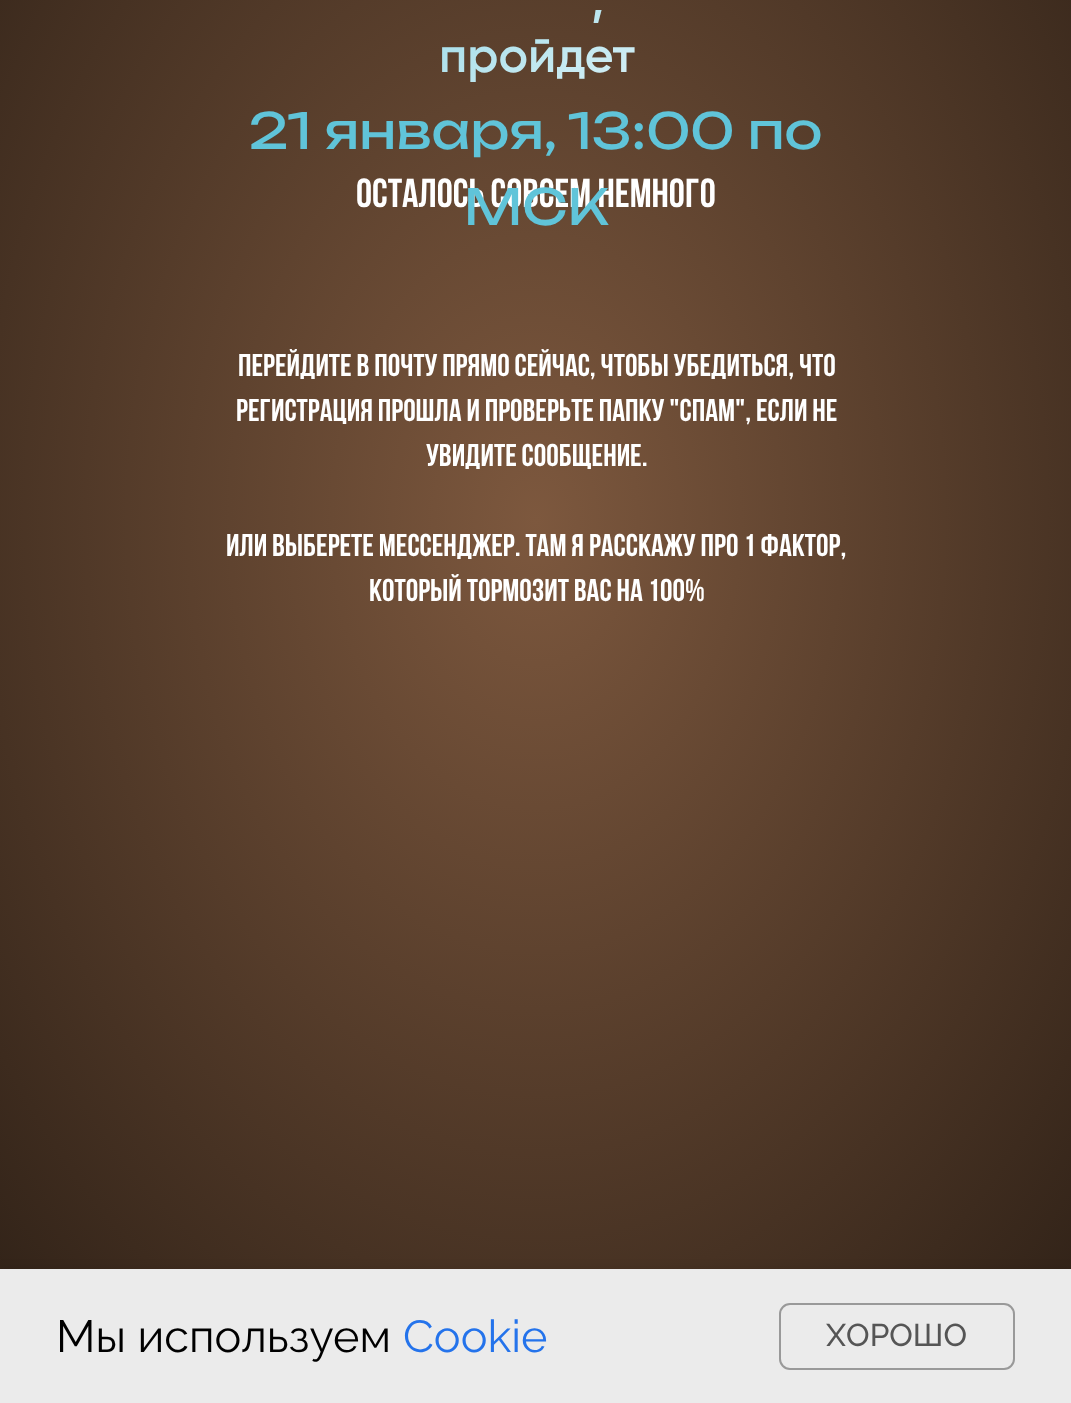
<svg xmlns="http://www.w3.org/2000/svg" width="1071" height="1403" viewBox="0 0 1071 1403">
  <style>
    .t1 { font: 600 49.5px Gilroy; fill: url(#g1); }
    .t2 { font: 49.5px Unbounded; fill: #60c4d9; }
    .t3 { font: bold 40.5px Bebas Neue; fill: #fff; }
    .t4 { font: bold 31.5px Bebas Neue; fill: #fff; }
    .t5 { font: 45px Raleway; fill: #000; }
    .t6 { font: 45px Raleway; fill: #2473eb; }
    .t7 { font: 500 31.5px Raleway; fill: #555; }
  </style>
  <defs>
    <linearGradient id="g1" gradientUnits="userSpaceOnUse" x1="413" y1="-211" x2="661" y2="218"><stop offset="0" stop-color="#60c4d9"/><stop offset="1" stop-color="#fff"/></linearGradient>
    <radialGradient id="g2" gradientUnits="userSpaceOnUse" cx="0" cy="0" r="1" gradientTransform="matrix(757 0 0 1061 536 521)"><stop offset="0" stop-color="#7d583e"/><stop offset="1" stop-color="#332419"/></radialGradient>
  </defs>
  <rect width="100%" height="100%" fill="#fff"/>
  <rect x="0" y="0" width="1071" height="1269" fill="url(#g2)"/>
  <text x="591" y="16" class="t1">,</text>
  <text x="439" y="72" class="t1">пройдет</text>
  <text x="249" y="149" class="t2">21 января, 13:00 по</text>
  <text x="356" y="207" class="t3">Осталось совсем немного</text>
  <text x="464" y="225" class="t2">МСК</text>
  <text x="238" y="376" class="t4">Перейдите в почту прямо сейчас, чтобы убедиться, что</text>
  <text x="236" y="421" class="t4">регистрация прошла и проверьте папку "Спам", если не</text>
  <text x="426" y="466" class="t4">увидите сообщение.</text>
  <text x="226" y="556" class="t4">Или выберете мессенджер. Там я расскажу про 1 фактор,</text>
  <text x="369" y="601" class="t4">который тормозит вас на 100%</text>
  <rect x="0" y="1269" width="1071" height="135" fill="#0000001a" filter="blur(5.5px)"/>
  <rect x="0" y="1269" width="1071" height="134" fill="#ebebeb"/>
  <text x="56" y="1352" class="t5">Мы используем</text>
  <text x="403" y="1352" class="t6">Cookie</text>
  <rect x="780" y="1304" width="234" height="65" rx="10" fill="none" stroke="#999" stroke-width="2"/>
  <text x="826" y="1346" class="t7">ХОРОШО</text>
</svg>
